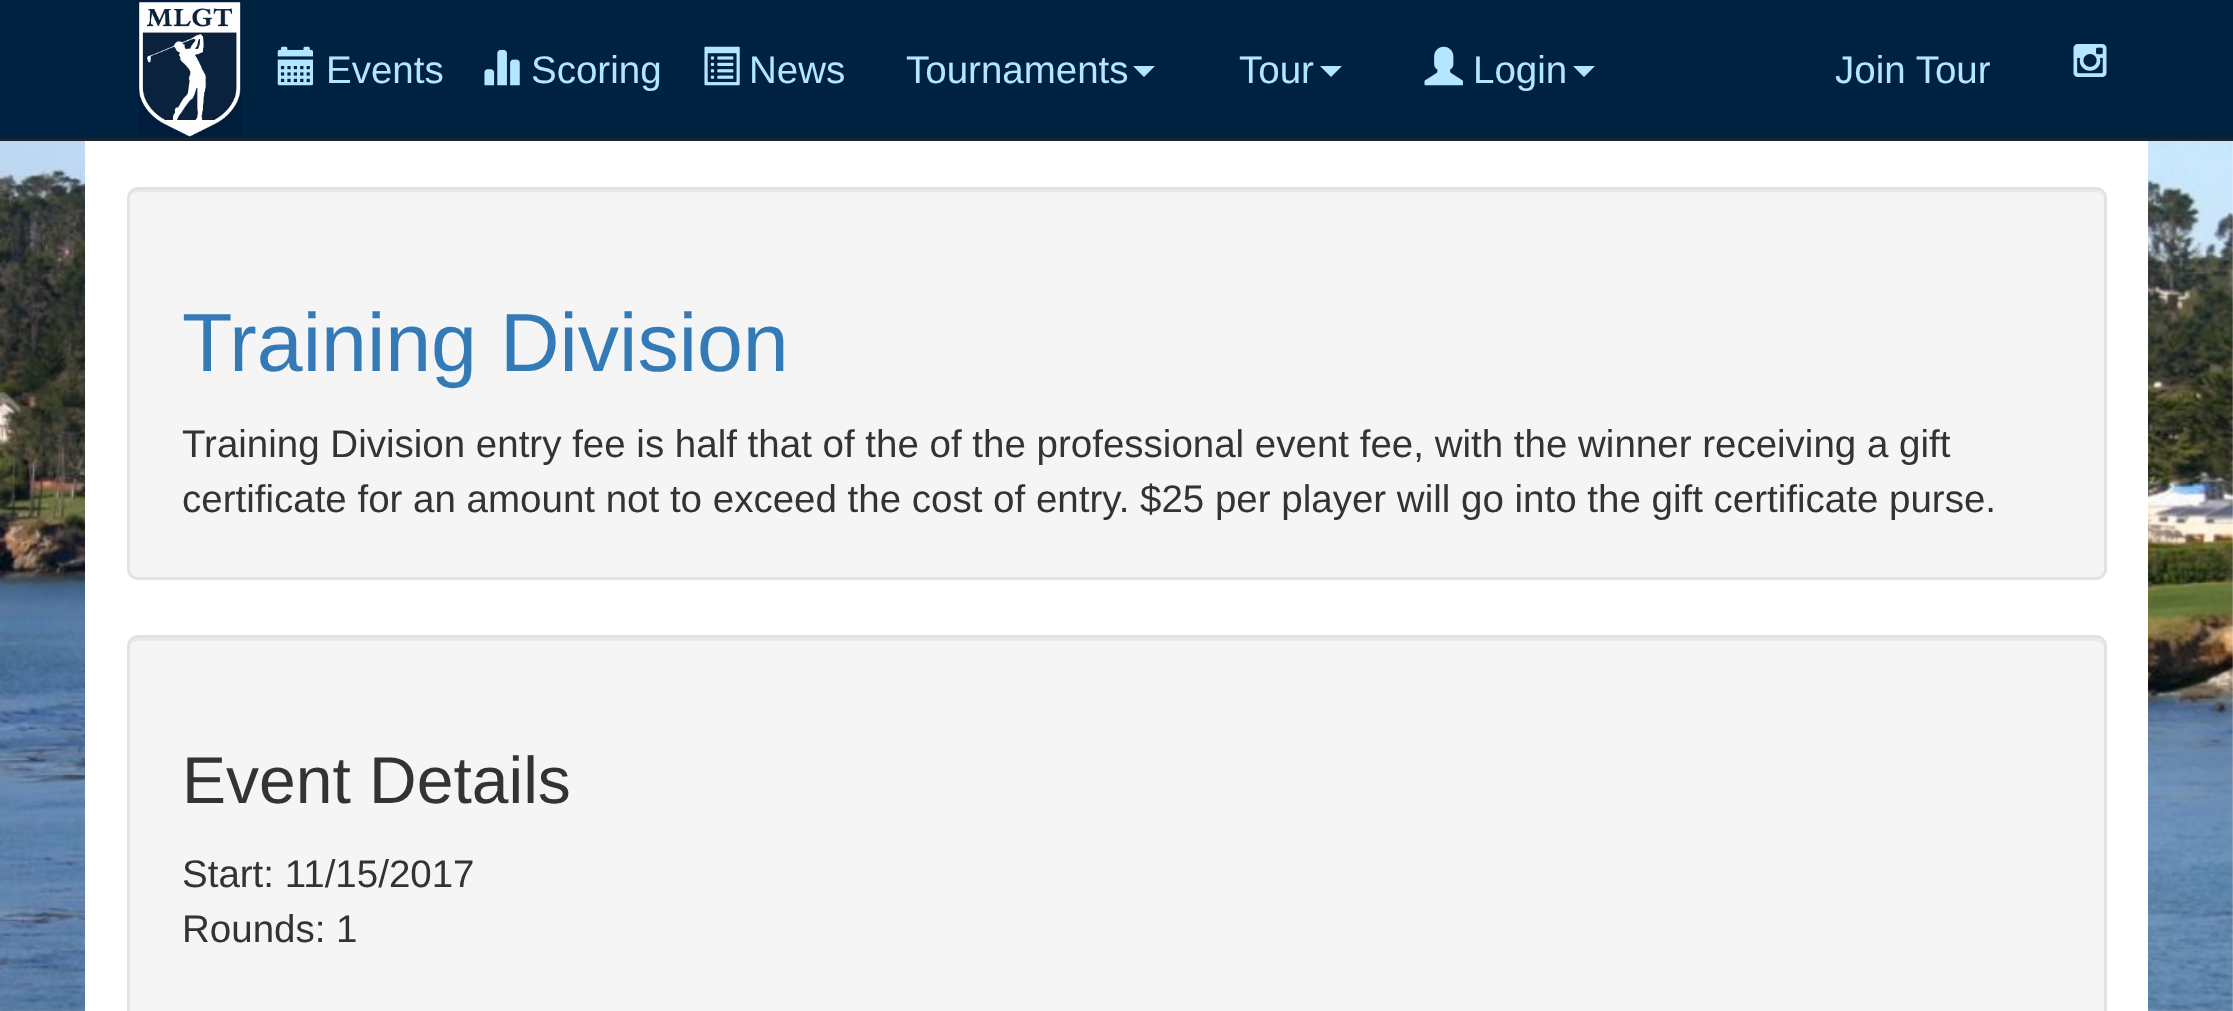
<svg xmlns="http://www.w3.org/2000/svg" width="2233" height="1011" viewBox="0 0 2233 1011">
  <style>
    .t1 { font: 38.5px Liberation Sans; fill: #b3e6ff; }
    .t2 { font: 82.5px Liberation Sans; fill: #337ab7; }
    .t3 { font: 38.5px Liberation Sans; fill: #333; }
    .t4 { font: 66px Liberation Sans; fill: #333; }
  </style>
  <rect width="100%" height="100%" fill="#fff"/>
  <rect x="0" y="0" width="2233" height="138" fill="#002241"/>
  <rect x="0" y="138" width="2233" height="3" fill="#1a242f"/>
  <image x="138" y="0" width="104" height="137" href="images/1.png"/>
  <image x="277" y="46" width="37" height="40" href="images/2.png"/>
  <text x="326" y="83" class="t1">Events</text>
  <image x="484" y="49" width="36" height="37" href="images/3.png"/>
  <text x="531" y="83" class="t1">Scoring</text>
  <image x="704" y="46" width="36" height="40" href="images/4.png"/>
  <text x="749" y="83" class="t1">News</text>
  <text x="906" y="83" class="t1">Tournaments</text>
  <path d="M1133 66H1155L1144 77Z" fill="#b3e6ff"/>
  <text x="1239" y="83" class="t1">Tour</text>
  <path d="M1320 66H1342L1331 77Z" fill="#b3e6ff"/>
  <image x="1424" y="46" width="39" height="40" href="images/5.png"/>
  <text x="1473" y="83" class="t1">Login</text>
  <path d="M1573 66H1595L1584 77Z" fill="#b3e6ff"/>
  <text x="1835" y="83" class="t1">Join Tour</text>
  <image x="2073" y="44" width="34" height="33" href="images/6.png"/>
  <image x="0" y="141" width="2233" height="870" href="images/7.png"/>
  <rect x="85" y="141" width="2063" height="870" fill="#fff"/>
  <rect x="127" y="187" width="1980" height="393" rx="11" fill="#f5f5f5"/>
  <path d="M138 192H2096C2100 192 2104 196 2104 201V198C2104 194 2100 190 2096 190H137C133 190 129 194 129 198V201C129 196 133 192 138 192Z" fill="#e9e9e9"/>
  <rect x="128.5" y="188.5" width="1977" height="390" rx="9.5" fill="none" stroke="#e3e3e3" stroke-width="3"/>
  <text x="182" y="371" class="t2">Training Division</text>
  <text x="182" y="457" class="t3">Training Division entry fee is half that of the of the professional event fee, with the winner receiving a gift</text>
  <text x="182" y="512" class="t3">certificate for an amount not to exceed the cost of entry. $25 per player will go into the gift certificate purse.</text>
  <rect x="127" y="635" width="1980" height="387" rx="11" fill="#f5f5f5"/>
  <path d="M138 641H2096C2100 641 2104 644 2104 649V646C2104 642 2100 638 2096 638H137C133 638 129 642 129 646V649C129 644 133 641 138 641Z" fill="#e9e9e9"/>
  <rect x="128.5" y="636.5" width="1977" height="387" rx="9.5" fill="none" stroke="#e3e3e3" stroke-width="3"/>
  <text x="182" y="803" class="t4">Event Details</text>
  <text x="182" y="887" class="t3">Start: 11/15/2017</text>
  <text x="182" y="942" class="t3">Rounds: 1</text>
</svg>
